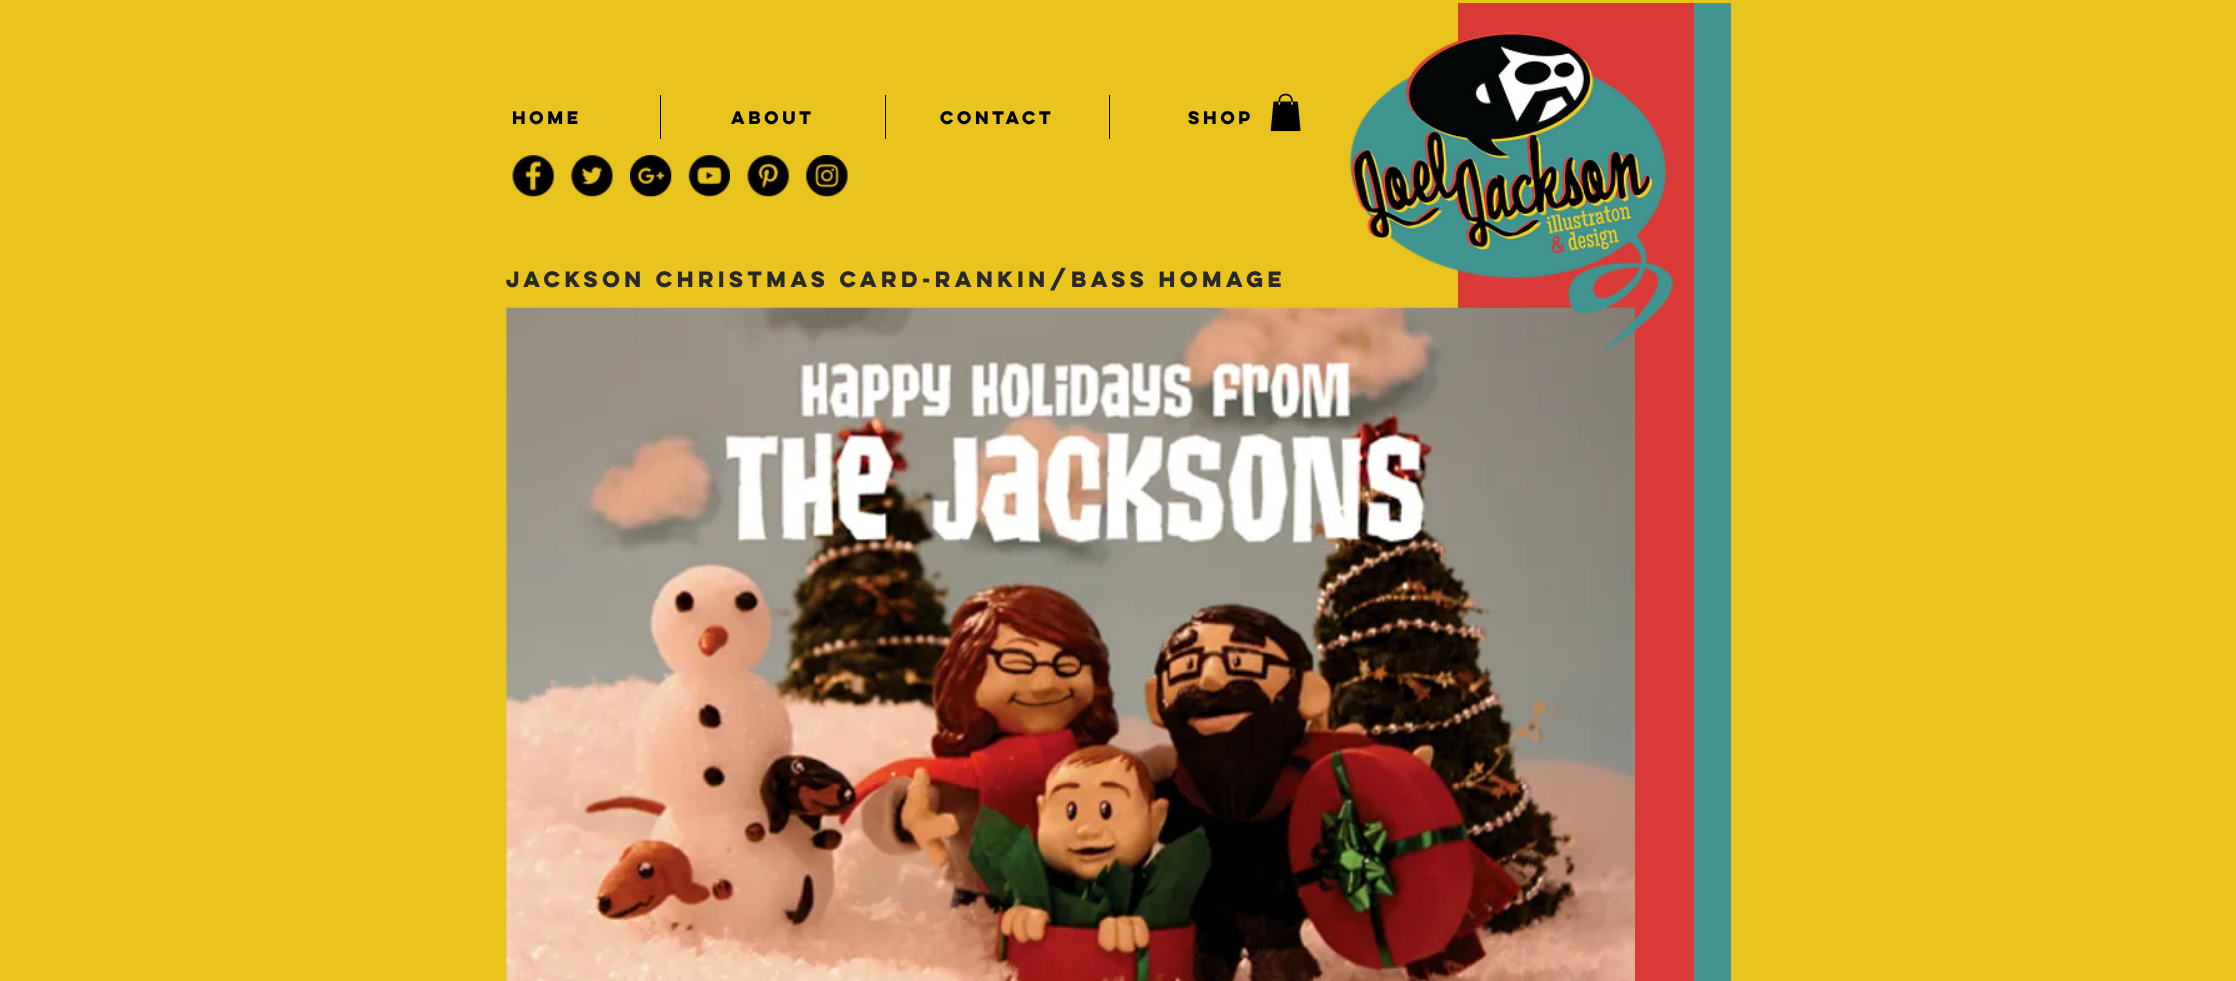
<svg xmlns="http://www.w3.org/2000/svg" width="2236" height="981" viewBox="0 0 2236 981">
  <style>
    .t1 { font: bold 16.25px 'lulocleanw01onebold'; fill: #000; }
    .t2 { font: bold 20px 'lulocleanw01onebold'; fill: #292929; }
  </style>
  <rect width="100%" height="100%" fill="#e9c31e"/>
  <text x="512" y="124" class="t1">HOME</text>
  <rect x="660" y="95" width="1" height="44" fill="#000"/>
  <text x="731" y="124" class="t1">ABOUT</text>
  <rect x="885" y="95" width="1" height="44" fill="#000"/>
  <text x="940" y="124" class="t1">contact</text>
  <rect x="1109" y="95" width="1" height="44" fill="#000"/>
  <text x="1188" y="124" class="t1">Shop</text>
  <image x="1270" y="93" width="31" height="39" href="images/1.png"/>
  <rect x="1458" y="3" width="236" height="978" fill="#d93a37"/>
  <rect x="1694" y="3" width="37" height="978" fill="#429591"/>
  <image x="512" y="155" width="42" height="42" href="images/2.png"/>
  <image x="571" y="155" width="42" height="42" href="images/3.png"/>
  <image x="630" y="155" width="42" height="42" href="images/4.png"/>
  <image x="688" y="155" width="42" height="42" href="images/5.png"/>
  <image x="747" y="155" width="42" height="42" href="images/6.png"/>
  <image x="806" y="155" width="42" height="42" href="images/7.png"/>
  <image x="506" y="307" width="1129" height="674" href="images/9.png"/>
  <image x="1349" y="31" width="325" height="322" href="images/8.png"/>
  <text x="506" y="287" class="t2">JACKSON CHRISTMAS CARD-RANKIN/BASS HOMAGE</text>
</svg>
